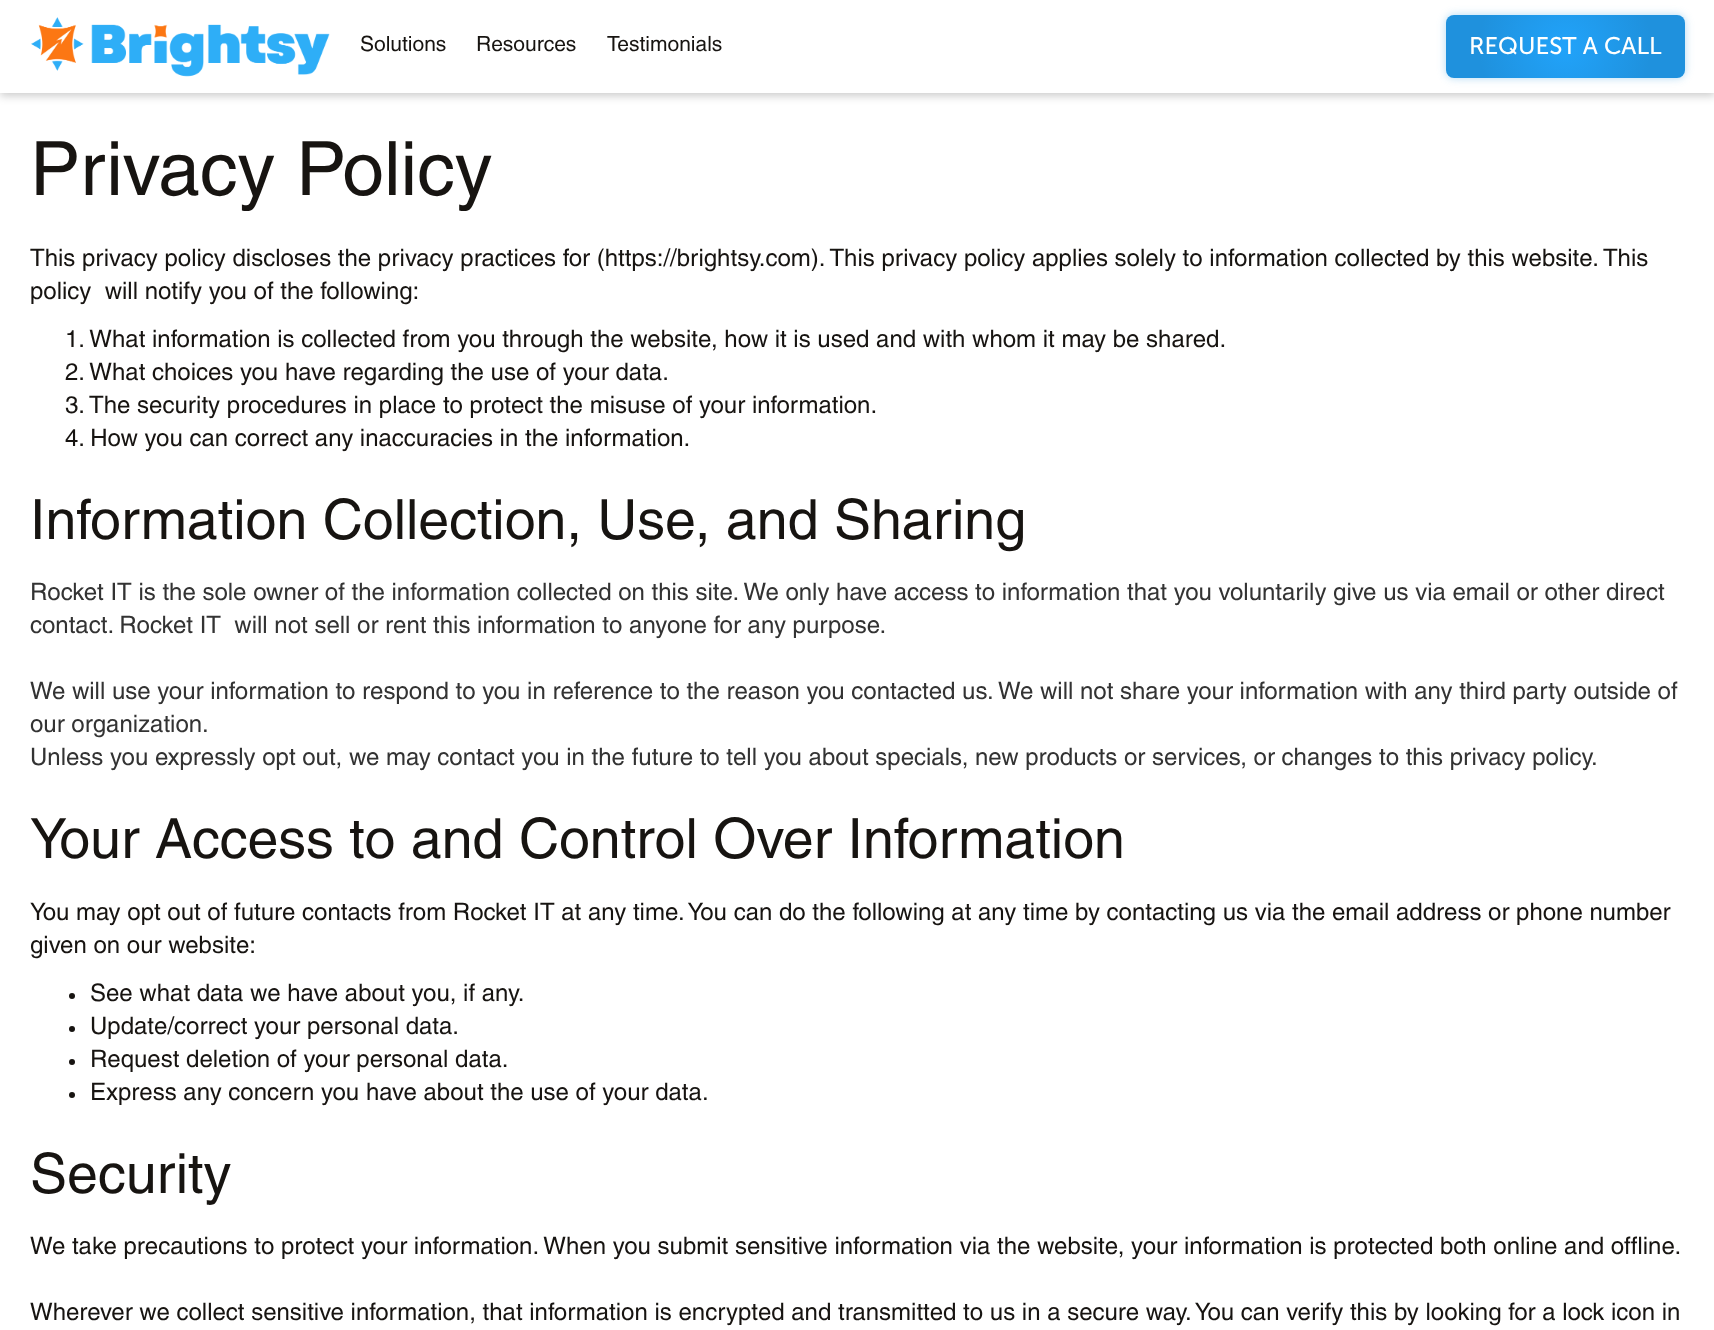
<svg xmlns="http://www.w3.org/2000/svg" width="1714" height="1330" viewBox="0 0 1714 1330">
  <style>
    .t1 { font: 21px Helvetica; fill: #171411; }
    .t2 { font: 24px Museo Sans; fill: #fff; }
    .t3 { font: 75px Helvetica; fill: #171411; }
    .t4 { font: 24px Helvetica; fill: #171411; }
    .t5 { font: 55.5px Helvetica; fill: #171411; }
    .t6 { font: 24px Helvetica; fill: #333; }
  </style>
  <defs>
    <radialGradient id="g1" gradientUnits="userSpaceOnUse" cx="1565" cy="47" r="123"><stop offset="0" stop-color="#21a3fa"/><stop offset="0.7" stop-color="#1f91dd"/></radialGradient>
  </defs>
  <rect width="100%" height="100%" fill="#fff"/>
  <rect x="0" y="3" width="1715" height="93" fill="#00000033" filter="blur(4px)"/>
  <rect x="0" y="0" width="1714" height="93" fill="#fff"/>
  <image x="31" y="17" width="299" height="60" href="images/1.png"/>
  <text x="360" y="51" class="t1">Solutions</text>
  <text x="476" y="51" class="t1">Resources</text>
  <text x="607" y="51" class="t1">Testimonials</text>
  <rect x="1446" y="15" width="239" height="63" rx="8" fill="#1f91dd59" filter="blur(4px)"/>
  <rect x="1446" y="15" width="239" height="63" rx="8" fill="url(#g1)"/>
  <text x="1469" y="54" class="t2">REQUEST A CALL</text>
  <text x="30" y="195" class="t3">Privacy Policy</text>
  <text x="30" y="266" class="t4">This privacy policy discloses the privacy practices for (https://brightsy.com). This privacy policy applies solely to information collected by this website. This</text>
  <text x="30" y="299" class="t4" xml:space="preserve">policy  will notify you of the following:</text>
  <text x="65" y="347" class="t4">1. What information is collected from you through the website, how it is used and with whom it may be shared.</text>
  <text x="65" y="380" class="t4">2. What choices you have regarding the use of your data.</text>
  <text x="65" y="413" class="t4">3. The security procedures in place to protect the misuse of your information.</text>
  <text x="65" y="446" class="t4">4. How you can correct any inaccuracies in the information.</text>
  <text x="30" y="539" class="t5">Information Collection, Use, and Sharing</text>
  <text x="30" y="600" class="t6">Rocket IT is the sole owner of the information collected on this site. We only have access to information that you voluntarily give us via email or other direct</text>
  <text x="30" y="633" class="t6" xml:space="preserve">contact. Rocket IT  will not sell or rent this information to anyone for any purpose.</text>
  <text x="30" y="699" class="t6">We will use your information to respond to you in reference to the reason you contacted us. We will not share your information with any third party outside of</text>
  <text x="30" y="732" class="t6">our organization.</text>
  <text x="30" y="765" class="t6">Unless you expressly opt out, we may contact you in the future to tell you about specials, new products or services, or changes to this privacy policy.</text>
  <text x="30" y="858" class="t5">Your Access to and Control Over Information</text>
  <text x="30" y="920" class="t4">You may opt out of future contacts from Rocket IT at any time. You can do the following at any time by contacting us via the email address or phone number</text>
  <text x="30" y="953" class="t4">given on our website:</text>
  <circle cx="72" cy="996" r="3" fill="#171411"/>
  <text x="90" y="1001" class="t4">See what data we have about you, if any.</text>
  <circle cx="72" cy="1029" r="3" fill="#171411"/>
  <text x="90" y="1034" class="t4">Update/correct your personal data.</text>
  <circle cx="72" cy="1062" r="3" fill="#171411"/>
  <text x="90" y="1067" class="t4">Request deletion of your personal data.</text>
  <circle cx="72" cy="1095" r="3" fill="#171411"/>
  <text x="90" y="1100" class="t4">Express any concern you have about the use of your data.</text>
  <text x="30" y="1193" class="t5">Security</text>
  <text x="30" y="1254" class="t4">We take precautions to protect your information. When you submit sensitive information via the website, your information is protected both online and offline.</text>
  <text x="30" y="1320" class="t4">Wherever we collect sensitive information, that information is encrypted and transmitted to us in a secure way. You can verify this by looking for a lock icon in</text>
</svg>
